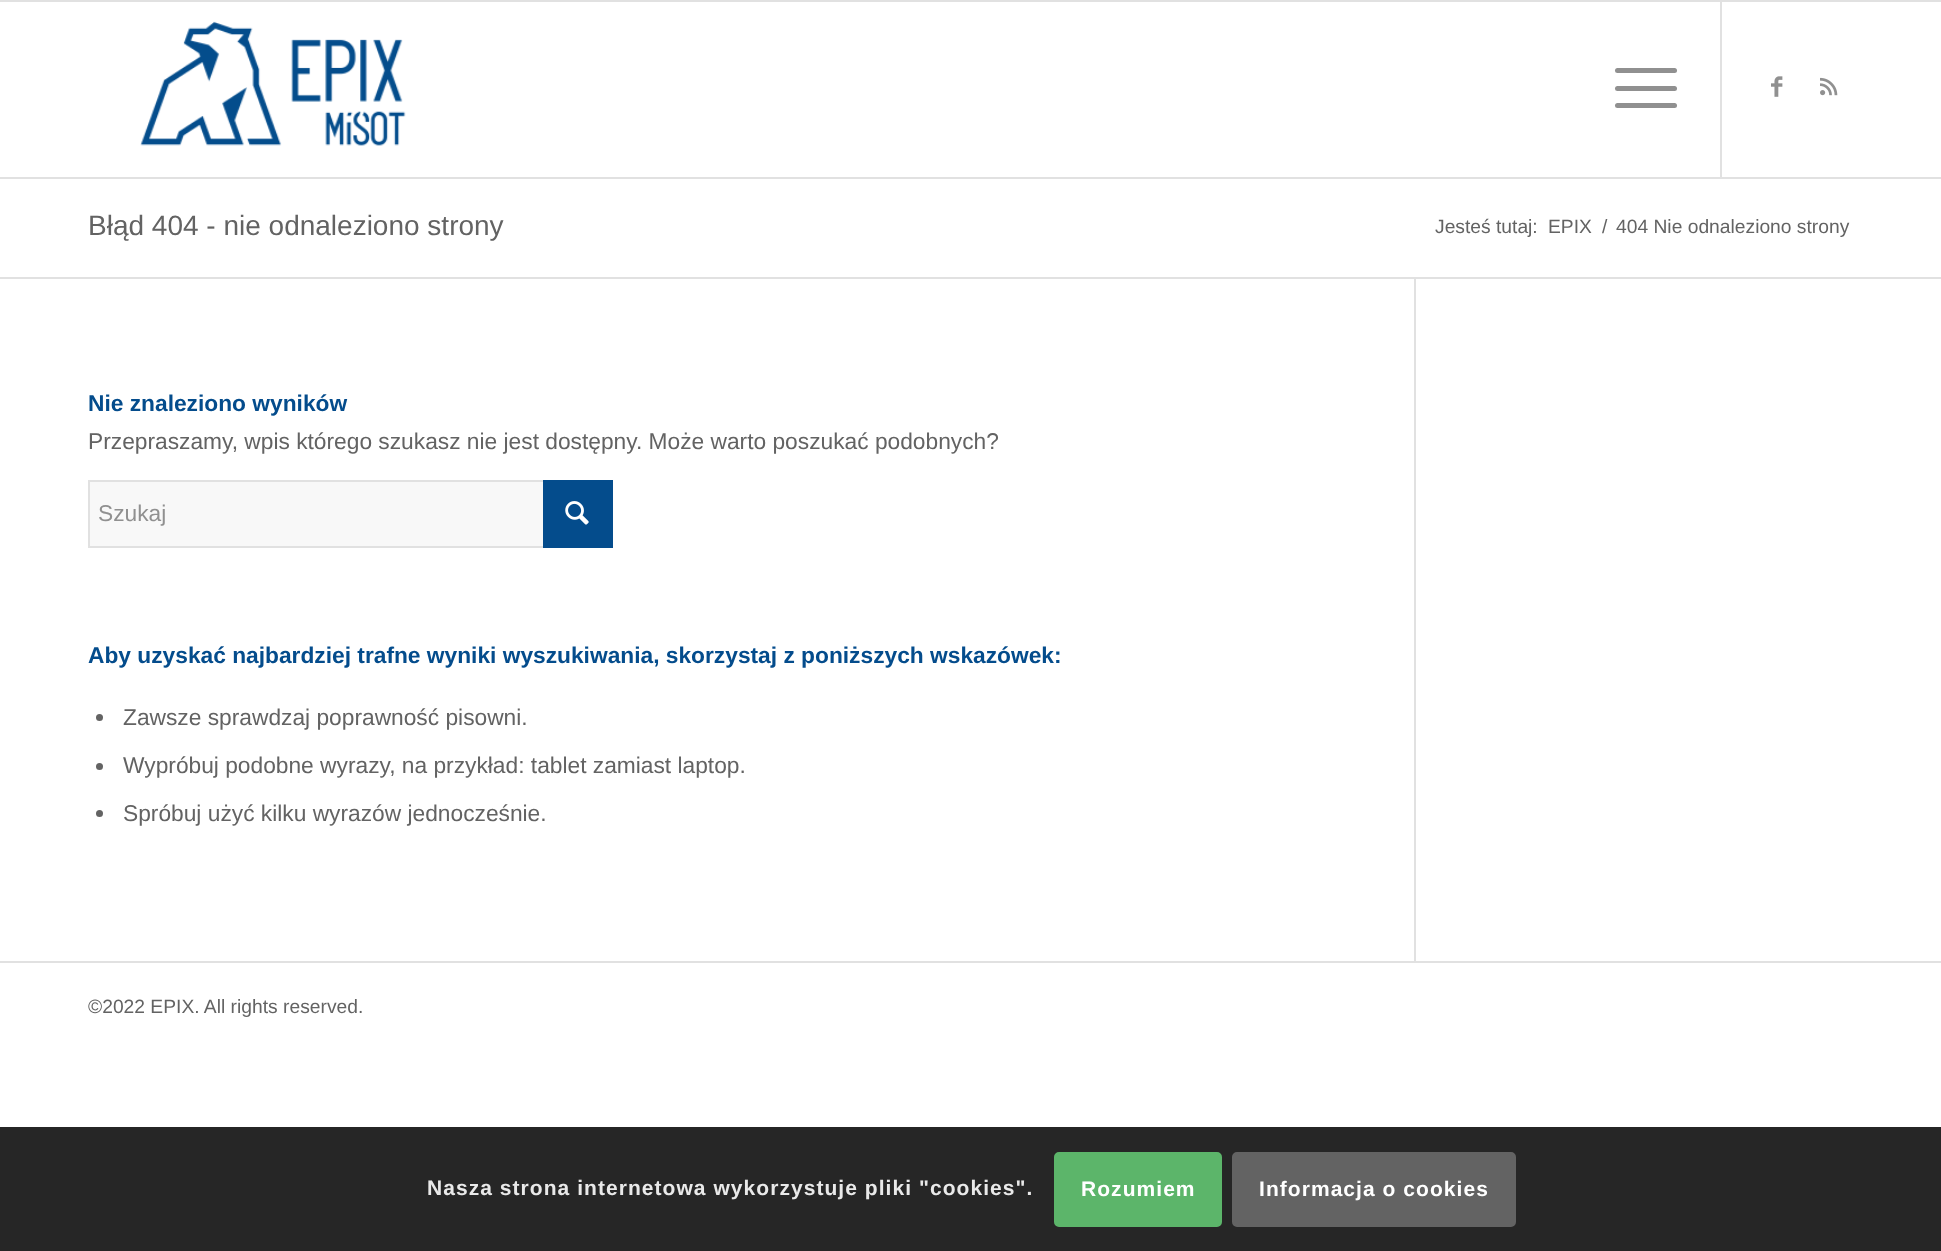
<svg xmlns="http://www.w3.org/2000/svg" width="1941" height="1251" viewBox="0 0 1941 1251">
  <style>
    .t1 { font: 28px Liberation Sans; fill: #636363; }
    .t2 { font: 19.25px Liberation Sans; fill: #636363; }
    .t3 { font: bold 22.75px Liberation Sans; fill: #044c8c; }
    .t4 { font: 22.75px Liberation Sans; fill: #636363; }
    .t5 { font: 22.75px Liberation Sans; fill: #909090; }
    .t6 { font: bold 21px Liberation Sans; letter-spacing: 1.05px; fill: #e9e9e9; }
    .t7 { font: bold 21px Liberation Sans; letter-spacing: 1.05px; fill: #fff; }
  </style>
  <rect width="100%" height="100%" fill="#fff"/>
  <rect x="0" y="0" width="1941" height="2" fill="#e1e1e1"/>
  <rect x="0" y="177" width="1941" height="2" fill="#e1e1e1"/>
  <image x="140" y="21" width="266" height="125" href="images/1.png"/>
  <rect x="1720" y="2" width="2" height="175" fill="#e1e1e1"/>
  <rect x="1615" y="86" width="62" height="5" rx="2.5" fill="#909090"/>
  <rect x="1615" y="68" width="62" height="5" rx="2.5" fill="#909090"/>
  <rect x="1615" y="103" width="62" height="5" rx="2.5" fill="#909090"/>
  <image x="1771" y="76" width="12" height="21" href="images/2.png"/>
  <image x="1820" y="77" width="18" height="19" href="images/3.png"/>
  <text x="88" y="235" class="t1">Błąd 404 - nie odnaleziono strony</text>
  <text x="1435" y="233" class="t2">Jesteś tutaj:</text>
  <text x="1548" y="233" class="t2">EPIX</text>
  <text x="1602" y="233" class="t2">/</text>
  <text x="1616" y="233" class="t2">404 Nie odnaleziono strony</text>
  <rect x="0" y="277" width="1941" height="2" fill="#e1e1e1"/>
  <rect x="1414" y="278" width="2" height="683" fill="#e1e1e1"/>
  <text x="88" y="411" class="t3">Nie znaleziono wyników</text>
  <text x="88" y="449" class="t4">Przepraszamy, wpis którego szukasz nie jest dostępny. Może warto poszukać podobnych?</text>
  <rect x="90" y="482" width="453" height="64" fill="#f8f8f8"/>
  <rect x="89" y="481" width="523" height="66" fill="none" stroke="#e1e1e1" stroke-width="2"/>
  <text x="98" y="521" class="t5">Szukaj</text>
  <rect x="543" y="480" width="70" height="68" fill="#044c8c"/>
  <image x="565" y="501" width="24" height="24" href="images/4.png"/>
  <text x="88" y="663" class="t3">Aby uzyskać najbardziej trafne wyniki wyszukiwania, skorzystaj z poniższych wskazówek:</text>
  <circle cx="99.5" cy="717.5" r="3.5" fill="#636363"/>
  <text x="123" y="725" class="t4">Zawsze sprawdzaj poprawność pisowni.</text>
  <circle cx="99.5" cy="766.5" r="3.5" fill="#636363"/>
  <text x="123" y="773" class="t4">Wypróbuj podobne wyrazy, na przykład: tablet zamiast laptop.</text>
  <circle cx="99.5" cy="813.5" r="3.5" fill="#636363"/>
  <text x="123" y="821" class="t4">Spróbuj użyć kilku wyrazów jednocześnie.</text>
  <rect x="0" y="961" width="1941" height="2" fill="#e1e1e1"/>
  <text x="88" y="1013" class="t2">©2022 EPIX. All rights reserved.</text>
  <rect x="0" y="1127" width="1941" height="124" fill="#262626"/>
  <text x="427" y="1195" class="t6">Nasza strona internetowa wykorzystuje pliki "cookies".</text>
  <rect x="1056" y="1154" width="164" height="71" rx="3" fill="#5cb56a" stroke="#5cb56a" stroke-width="4"/>
  <text x="1081" y="1196" class="t7">Rozumiem</text>
  <rect x="1234" y="1154" width="280" height="71" rx="3" fill="#636363" stroke="#636363" stroke-width="4"/>
  <text x="1259" y="1196" class="t7">Informacja o cookies</text>
</svg>
